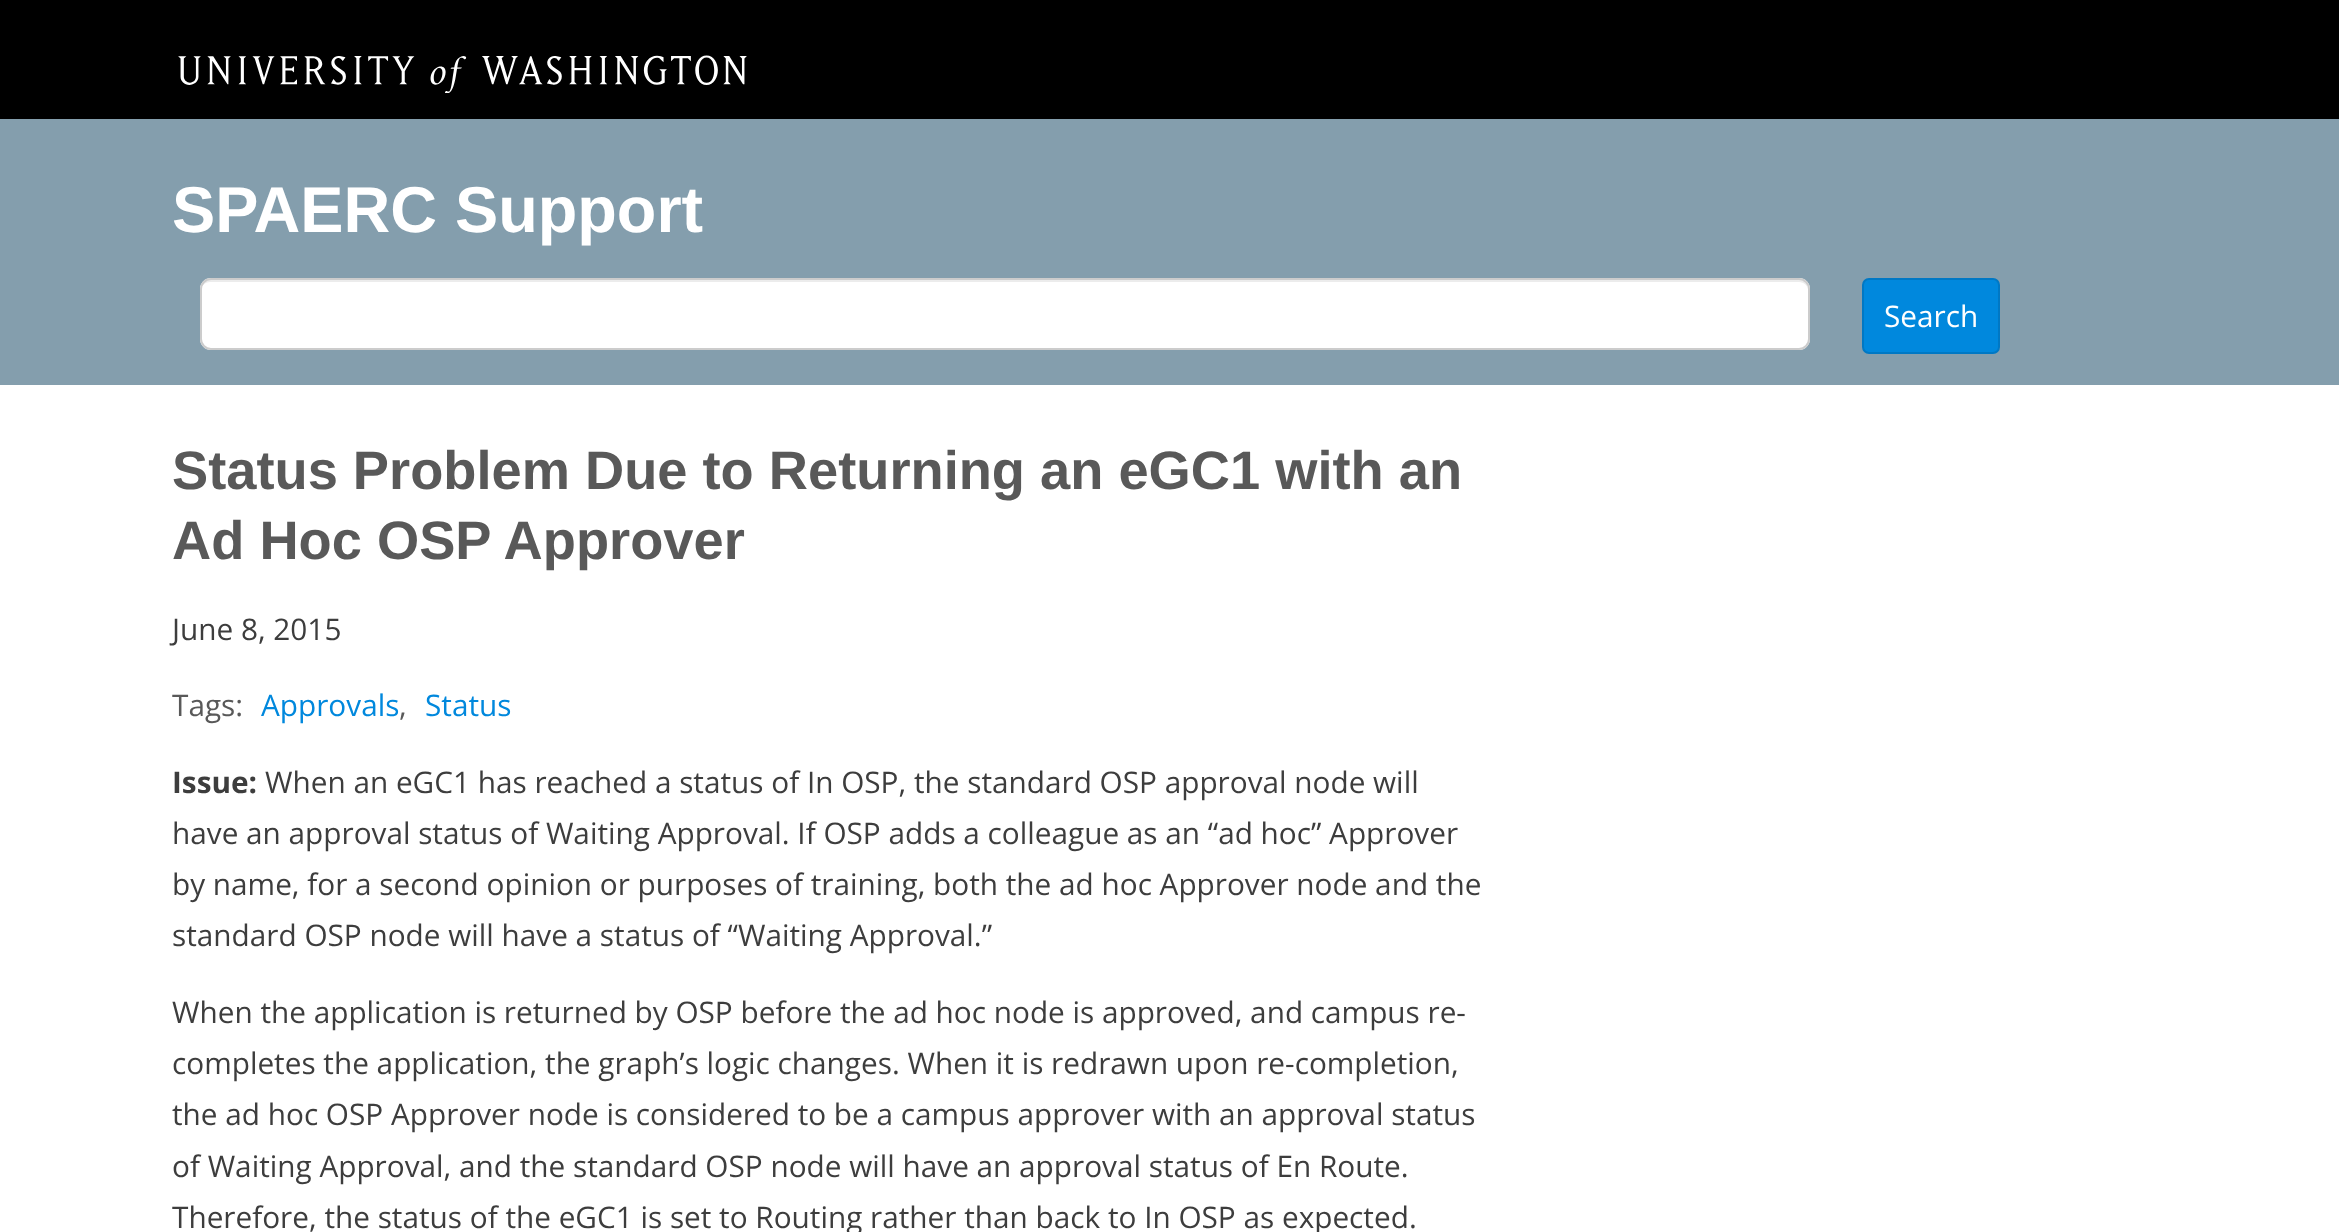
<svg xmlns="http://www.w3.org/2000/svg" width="2339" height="1232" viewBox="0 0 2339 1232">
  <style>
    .t1 { font: bold 64.75px Liberation Sans; fill: #fff; }
    .t2 { font: 29.75px Open Sans; fill: #fff; }
    .t3 { font: bold 54.25px Liberation Sans; fill: #595959; }
    .t4 { font: 29.75px Open Sans; fill: #3d3d3d; }
    .t5 { font: 29.75px Open Sans; fill: #595959; }
    .t6 { font: 29.75px Open Sans; fill: #08d; }
    .t7 { font: bold 29.75px Open Sans; fill: #3d3d3d; }
  </style>
  <rect width="100%" height="100%" fill="#fff"/>
  <rect x="0" y="0" width="2339" height="119" fill="#000"/>
  <image x="178" y="55" width="569" height="38" href="images/1.png"/>
  <rect x="0" y="119" width="2339" height="266" fill="#849ead"/>
  <text x="172" y="232" class="t1">SPAERC Support</text>
  <rect x="200" y="278" width="1610" height="72" rx="11" fill="#fff"/>
  <path d="M210 282H1799C1804 282 1808 286 1808 290C1808 285 1805 280 1799 280H210C204 280 201 285 201 290C201 286 205 282 210 282Z" fill="#ececec"/>
  <rect x="201" y="279" width="1608" height="70" rx="10" fill="none" stroke="#ccc" stroke-width="2"/>
  <rect x="1863" y="279" width="136" height="74" rx="6" fill="#08d" stroke="#0078c4" stroke-width="2"/>
  <text x="1884" y="327" class="t2">Search</text>
  <text x="172" y="489" class="t3">Status Problem Due to Returning an eGC1 with an</text>
  <text x="172" y="559" class="t3">Ad Hoc OSP Approver</text>
  <text x="172" y="640" class="t4">June 8, 2015</text>
  <text x="172" y="716" class="t5">Tags:</text>
  <text x="261" y="716" class="t6">Approvals</text>
  <text x="399" y="716" class="t5">,</text>
  <text x="425" y="716" class="t6">Status</text>
  <text x="172" y="793" class="t7">Issue:</text>
  <text x="265" y="793" class="t4">When an eGC1 has reached a status of In OSP, the standard OSP approval node will</text>
  <text x="172" y="844" class="t4">have an approval status of Waiting Approval. If OSP adds a colleague as an “ad hoc” Approver</text>
  <text x="172" y="895" class="t4">by name, for a second opinion or purposes of training, both the ad hoc Approver node and the</text>
  <text x="172" y="946" class="t4">standard OSP node will have a status of “Waiting Approval.”</text>
  <text x="172" y="1023" class="t4">When the application is returned by OSP before the ad hoc node is approved, and campus re-</text>
  <text x="172" y="1074" class="t4">completes the application, the graph’s logic changes. When it is redrawn upon re-completion,</text>
  <text x="172" y="1125" class="t4">the ad hoc OSP Approver node is considered to be a campus approver with an approval status</text>
  <text x="172" y="1177" class="t4">of Waiting Approval, and the standard OSP node will have an approval status of En Route.</text>
  <text x="172" y="1228" class="t4">Therefore, the status of the eGC1 is set to Routing rather than back to In OSP as expected.</text>
</svg>
